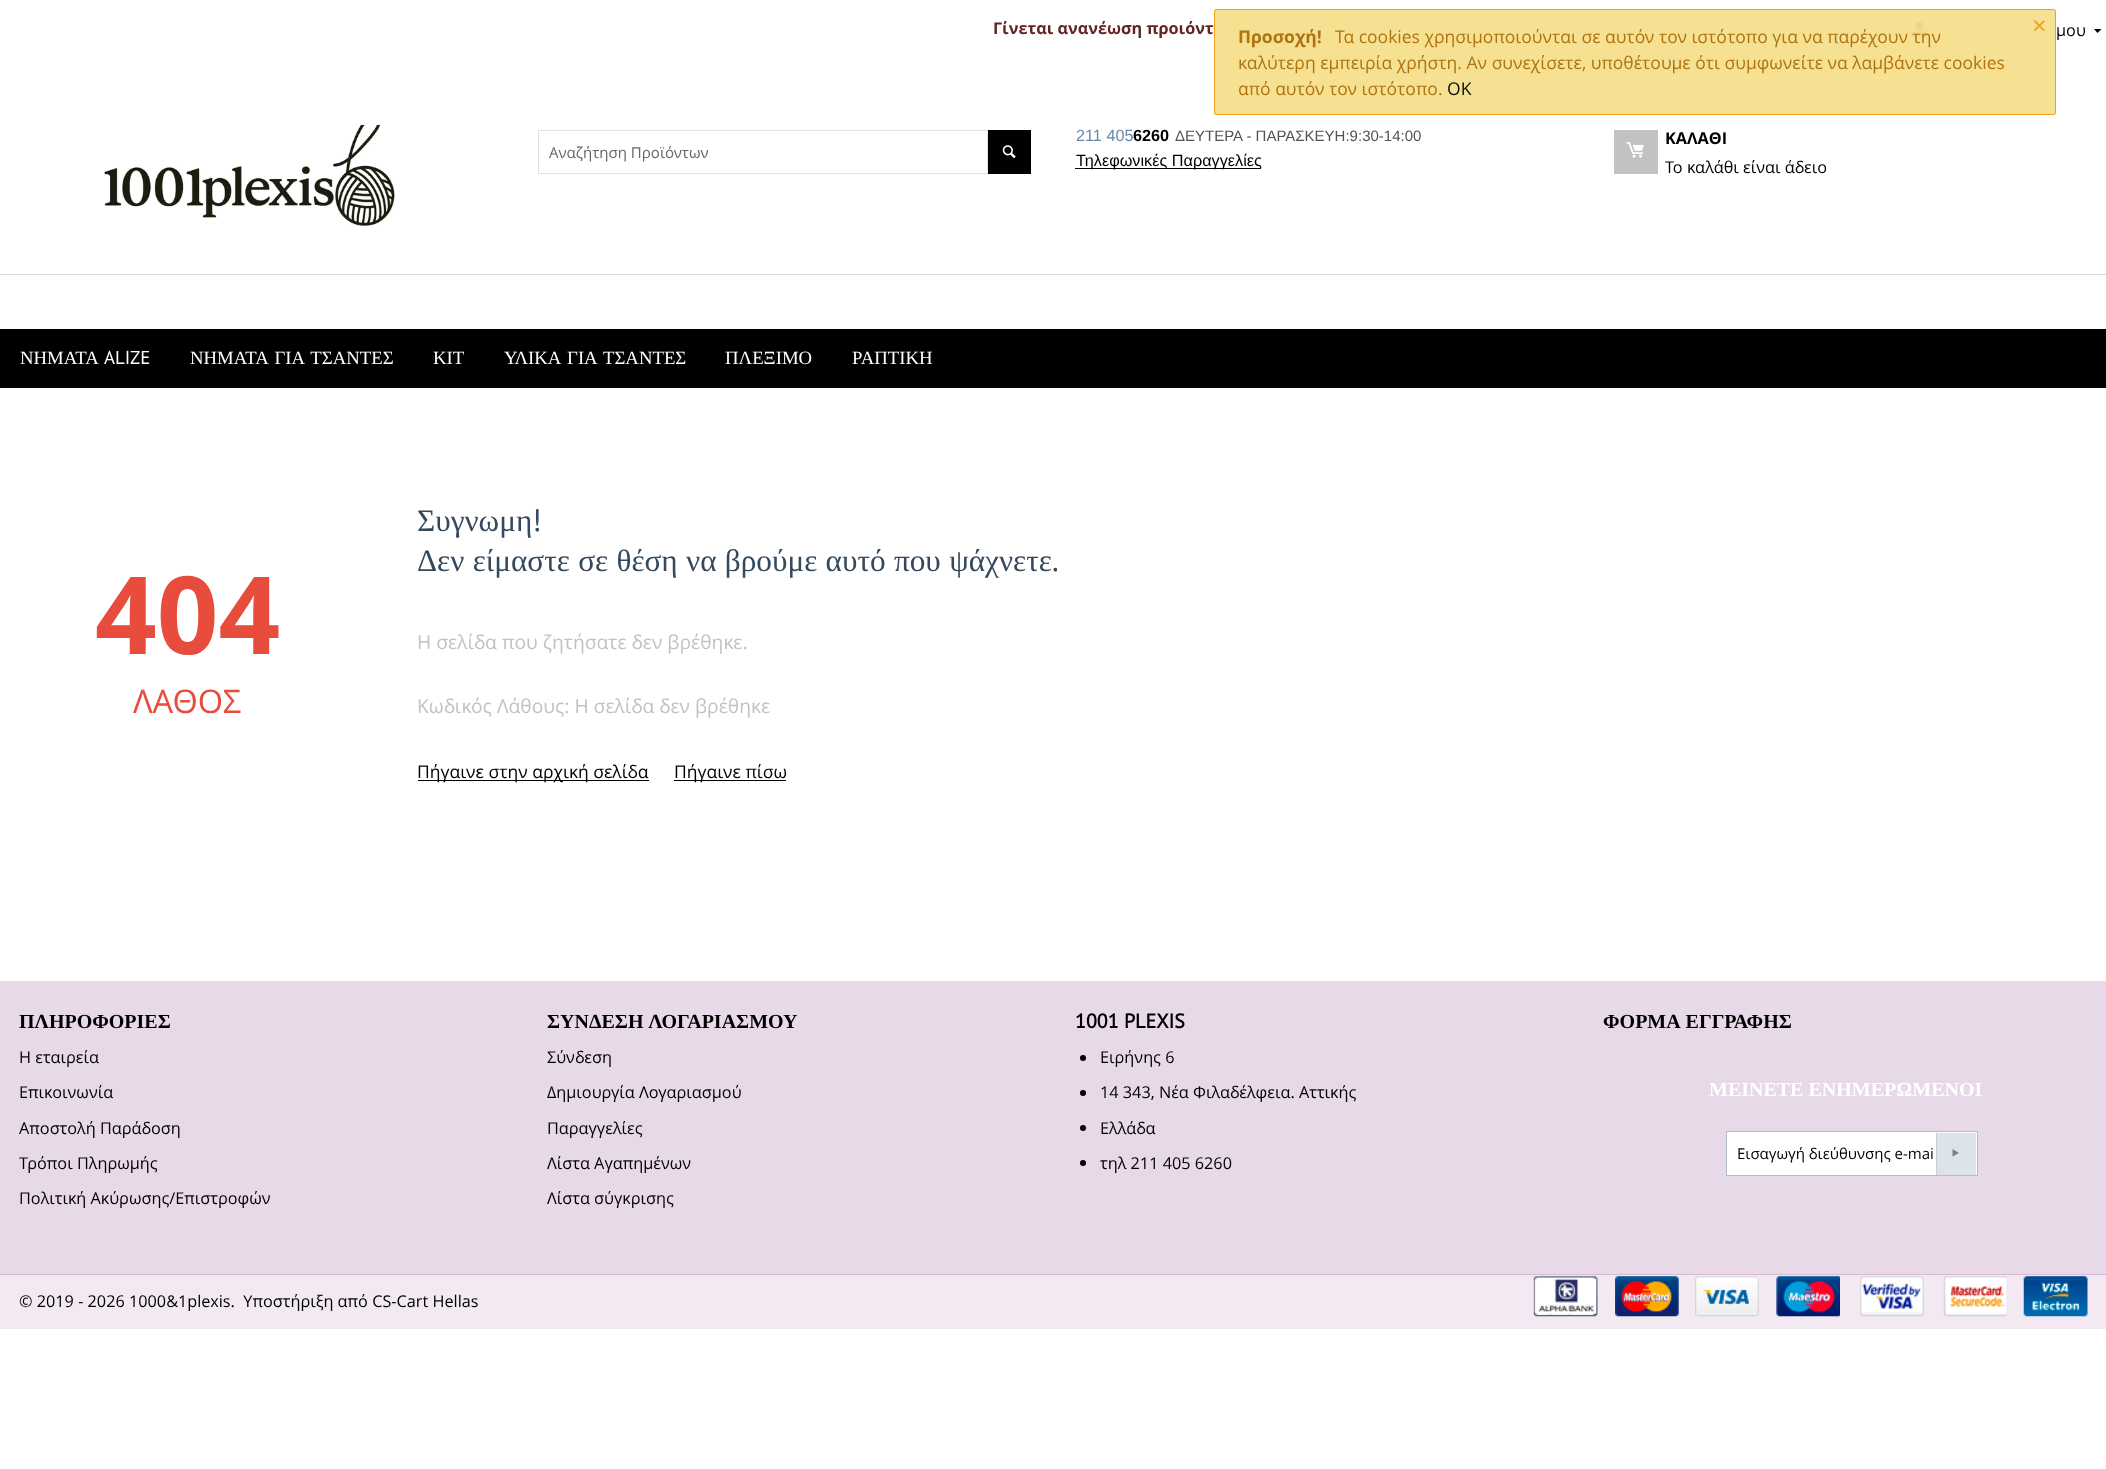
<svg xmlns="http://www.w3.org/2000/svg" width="2106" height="1469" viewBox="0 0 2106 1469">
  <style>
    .t1 { font: 25px Liberation Sans; fill: #f39f17; }
    .t2 { font: bold 17.5px Open Sans; fill: #af7310; }
    .t3 { font: 17.5px Open Sans; fill: #af7310; }
    .t4 { font: 17.5px Open Sans; fill: #0a0a0a; }
    .t5 { font: bold 16.25px Open Sans; fill: #632423; }
    .t6 { font: 16.25px Open Sans; fill: #000; }
    .t7 { font: 15px Open Sans; fill: #666; }
    .t8 { font: 16.25px Liberation Sans; fill: #6c8aa7; }
    .t9 { font: bold 16.25px Liberation Sans; fill: #000; }
    .t10 { font: 15px Liberation Sans; fill: #525252; }
    .t11 { font: 16.25px Liberation Sans; fill: #000; }
    .t12 { font: bold 16.25px Open Sans; fill: #000; }
    .t13 { font: 18.75px Liberation Serif; fill: #fff; }
    .t14 { font: 18.75px PT Sans; fill: #fff; }
    .t15 { font: bold 108px Open Sans; fill: #e74c3c; }
    .t16 { font: 32.5px Open Sans; fill: #e74c3c; }
    .t17 { font: 31.25px Liberation Serif; fill: #34495e; }
    .t18 { font: 31.25px PT Sans; fill: #34495e; }
    .t19 { font: 19.25px Open Sans; fill: #bdc3c7; }
    .t20 { font: 17.5px Open Sans; fill: #000; }
    .t21 { font: bold 20px Liberation Serif; fill: #000; }
    .t22 { font: bold 20px PT Sans; fill: #000; }
    .t23 { font: bold 20px Liberation Serif; fill: #fff; }
    .t24 { font: 15px Open Sans; fill: #000; }
  </style>
  <rect width="100%" height="100%" fill="#fff"/>
  <image x="1911" y="22" width="17" height="15" href="images/1.png"/>
  <rect x="1214" y="9" width="842" height="106" rx="2.5" fill="#f5e08cf5"/>
  <rect x="1214.5" y="9.5" width="841" height="105" rx="2" fill="none" stroke="#f39c12f5"/>
  <text x="2032" y="34" class="t1">×</text>
  <text x="1238" y="43" class="t2">Προσοχή!</text>
  <text x="1335" y="43" class="t3">Τα cookies χρησιμοποιούνται σε αυτόν τον ιστότοπο για να παρέχουν την</text>
  <text x="1238" y="69" class="t3">καλύτερη εμπειρία χρήστη. Αν συνεχίσετε, υποθέτουμε ότι συμφωνείτε να λαμβάνετε cookies</text>
  <text x="1238" y="95" class="t3">από αυτόν τον ιστότοπο.</text>
  <text x="1447" y="95" class="t4">OK</text>
  <rect x="0" y="274" width="2106" height="1" fill="#d9d9d9"/>
  <text x="993" y="34" class="t5">Γίνεται ανανέωση προιόντ</text>
  <text x="2056" y="36" class="t6">μου</text>
  <path d="M2097.5 33L2094 29H2101.5Z" fill="#000"/>
  <image x="104" y="125" width="291" height="101" href="images/2.png"/>
  <rect x="538.5" y="130.5" width="449" height="43" fill="none" stroke="#dce3ea"/>
  <text x="549" y="158" class="t7">Αναζήτηση Προϊόντων</text>
  <rect x="988" y="130" width="43" height="44" fill="#000"/>
  <image x="1002" y="145" width="14" height="13" href="images/3.png"/>
  <text x="1076" y="141" class="t8">211 405</text>
  <text x="1133" y="141" class="t9">6260</text>
  <text x="1175" y="141" class="t10">ΔΕΥΤΕΡΑ - ΠΑΡΑΣΚΕΥΗ:9:30-14:00</text>
  <rect x="1075" y="168" width="186" height="1" fill="#000"/>
  <text x="1076" y="166" class="t11">Τηλεφωνικές Παραγγελίες</text>
  <rect x="1614" y="130" width="44" height="44" fill="#c2c2c2"/>
  <image x="1626" y="142" width="18" height="16" href="images/4.png"/>
  <text x="1665" y="144" class="t12">ΚΑΛΑΘΙ</text>
  <text x="1665" y="173" class="t6">Το καλάθι είναι άδειο</text>
  <rect x="0" y="329" width="2106" height="59" fill="#000"/>
  <text x="20" y="364" class="t13">ΝΗΜΑΤΑ</text>
  <text x="104" y="364" class="t14">ALIZE</text>
  <text x="190" y="364" word-spacing="2" class="t13">ΝΗΜΑΤΑ ΓΙΑ ΤΣΑΝΤΕΣ</text>
  <text x="433" y="364" class="t13">ΚΙΤ</text>
  <text x="504" y="364" word-spacing="2" class="t13">ΥΛΙΚΑ ΓΙΑ ΤΣΑΝΤΕΣ</text>
  <text x="725" y="364" class="t13">ΠΛΕΞΙΜΟ</text>
  <text x="852" y="364" class="t13">ΡΑΠΤΙΚΗ</text>
  <text x="95" y="654" class="t15">404</text>
  <text x="133" y="713" class="t16">ΛΑΘΟΣ</text>
  <text x="417" y="531" class="t17">Συγνωμη</text>
  <text x="532" y="531" class="t18">!</text>
  <text x="417" y="571" word-spacing="0.5" class="t17">Δεν είμαστε σε θέση να βρούμε αυτό που ψάχνετε</text>
  <text x="1052" y="571" class="t18">.</text>
  <text x="417" y="649" class="t19">Η σελίδα που ζητήσατε δεν βρέθηκε.</text>
  <text x="417" y="713" class="t19">Κωδικός Λάθους: Η σελίδα δεν βρέθηκε</text>
  <rect x="418" y="780" width="231" height="1" fill="#000"/>
  <text x="417" y="778" class="t20">Πήγαινε στην αρχική σελίδα</text>
  <rect x="674" y="780" width="112" height="1" fill="#000"/>
  <text x="674" y="778" class="t20">Πήγαινε πίσω</text>
  <rect x="0" y="981" width="2106" height="293" fill="#e8d9e8"/>
  <text x="19" y="1028" class="t21">ΠΛΗΡΟΦΟΡΙΕΣ</text>
  <text x="19" y="1063" class="t6">Η εταιρεία</text>
  <text x="19" y="1098" class="t6">Επικοινωνία</text>
  <text x="19" y="1134" class="t6">Αποστολή Παράδοση</text>
  <text x="19" y="1169" class="t6">Τρόποι Πληρωμής</text>
  <text x="19" y="1204" class="t6">Πολιτική Ακύρωσης/Επιστροφών</text>
  <text x="547" y="1028" word-spacing="1" class="t21">ΣΥΝΔΕΣΗ ΛΟΓΑΡΙΑΣΜΟΥ</text>
  <text x="547" y="1063" class="t6">Σύνδεση</text>
  <text x="547" y="1098" class="t6">Δημιουργία Λογαριασμού</text>
  <text x="547" y="1134" class="t6">Παραγγελίες</text>
  <text x="547" y="1169" class="t6">Λίστα Αγαπημένων</text>
  <text x="547" y="1204" class="t6">Λίστα σύγκρισης</text>
  <text x="1075" y="1028" class="t22">1001 PLEXIS</text>
  <circle cx="1083" cy="1058" r="3" fill="#000"/>
  <text x="1100" y="1063" class="t6">Ειρήνης 6</text>
  <circle cx="1083" cy="1093" r="3" fill="#000"/>
  <text x="1100" y="1098" class="t6">14 343, Νέα Φιλαδέλφεια. Αττικής</text>
  <circle cx="1083" cy="1128" r="3" fill="#000"/>
  <text x="1100" y="1134" class="t6">Ελλάδα</text>
  <circle cx="1083" cy="1163" r="3" fill="#000"/>
  <text x="1100" y="1169" class="t6">τηλ 211 405 6260</text>
  <text x="1603" y="1028" word-spacing="1" class="t21">ΦΟΡΜΑ ΕΓΓΡΑΦΗΣ</text>
  <text x="1709" y="1096" class="t23">ΜΕΙΝΕΤΕ ΕΝΗΜΕΡΩΜΕΝΟΙ</text>
  <rect x="1726.5" y="1131.5" width="251" height="44" fill="#fff" stroke="#acbdcd"/>
  <text x="1737" y="1159" class="t24">Εισαγωγή διεύθυνσης e-mai</text>
  <rect x="1937" y="1133" width="39" height="42" fill="#dce3ea"/>
  <rect x="1936" y="1133" width="1" height="42" fill="#cdcdcd"/>
  <path d="M1952.5 1149L1959 1153L1952.5 1156.5Z" fill="#808080"/>
  <rect x="0" y="1275" width="2106" height="54" fill="#f2e9f2"/>
  <rect x="0" y="1274" width="2106" height="1" fill="#d5b9d5"/>
  <text x="19" y="1307" class="t6" xml:space="preserve">© 2019 - 2026 1000&amp;1plexis.  Υποστήριξη από CS-Cart Hellas</text>
  <image x="1533" y="1276" width="65" height="41" href="images/5.png"/>
  <image x="1615" y="1276" width="64" height="41" href="images/6.png"/>
  <image x="1695" y="1276" width="64" height="41" href="images/7.png"/>
  <image x="1776" y="1276" width="64" height="41" href="images/8.png"/>
  <image x="1860" y="1276" width="64" height="41" href="images/9.png"/>
  <image x="1943" y="1276" width="64" height="41" href="images/10.png"/>
  <image x="2023" y="1276" width="65" height="41" href="images/11.png"/>
</svg>
